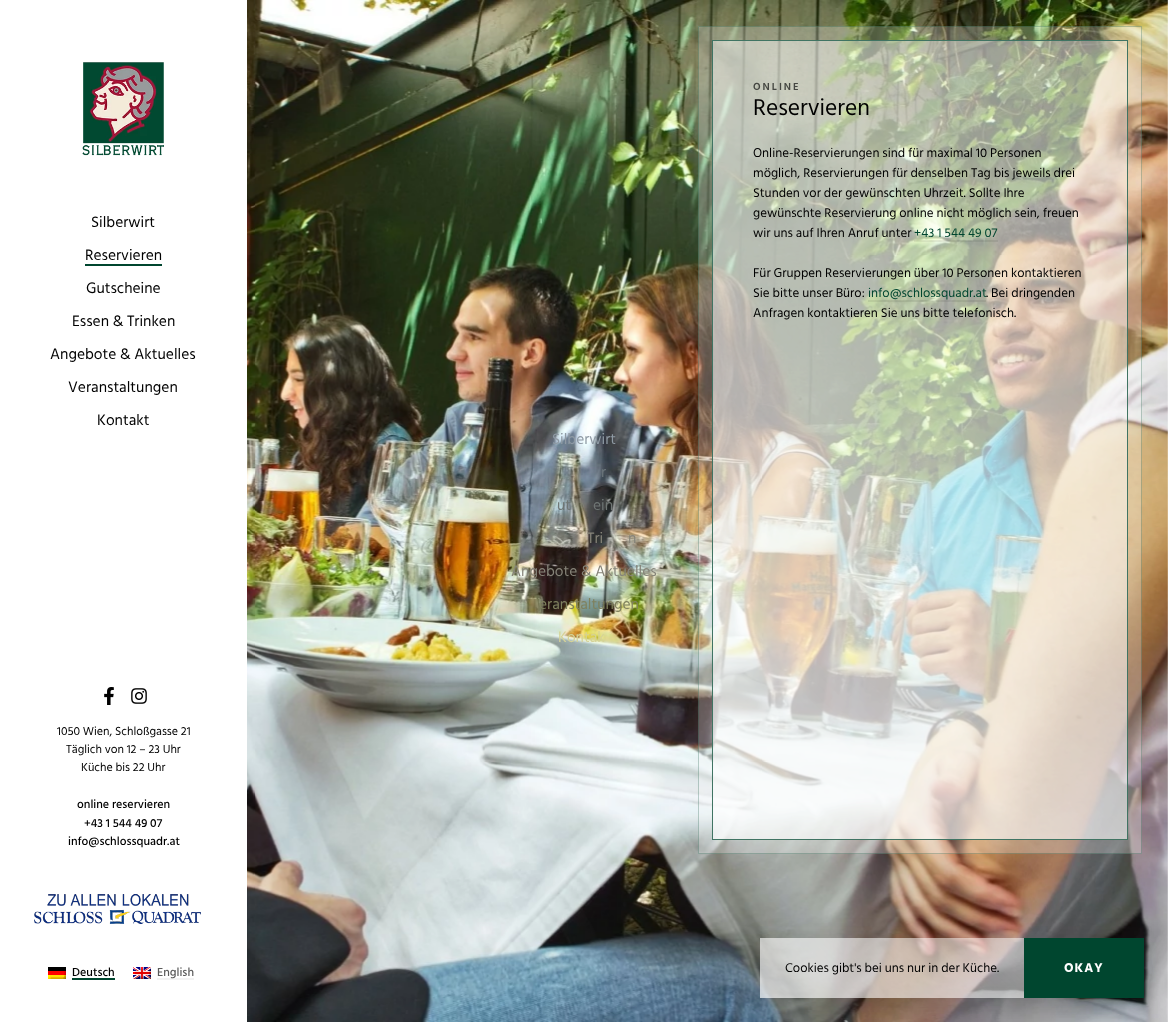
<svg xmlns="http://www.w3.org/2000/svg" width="1168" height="1022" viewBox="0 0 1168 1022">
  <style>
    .t1 { font: 15.5px Hind Siliguri; fill: #000; }
    .t2 { font: 12px Hind Siliguri; fill: #000; }
    .t3 { font: 500 12px Hind Siliguri; fill: #000; }
    .t4 { font: 500 12px Hind Siliguri; fill: #595959; }
    .t5 { font: 600 10.5px Hind Siliguri; letter-spacing: 2px; fill: #454742; }
    .t6 { font: 23.5px Hind Siliguri; fill: #000; }
    .t7 { font: 13px Hind Siliguri; fill: #000; }
    .t8 { font: 13px Hind Siliguri; fill: #00462f; }
    .t9 { font: 15.5px Hind Siliguri; fill: #8f9aa4; }
    .t10 { font: 15.5px Hind Siliguri; fill: #6c767b; }
    .t11 { font: 15.5px Hind Siliguri; fill: #6f7674; }
    .t12 { font: 15.5px Hind Siliguri; fill: #868479; }
    .t13 { font: 15.5px Hind Siliguri; fill: #7f815e; }
    .t14 { font: 15.5px Hind Siliguri; fill: #d5d297; }
    .t15 { font: bold 13px Hind Siliguri; letter-spacing: 1px; fill: #fff; }
  </style>
  <defs>
    <clipPath id="clip1"><path d="M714 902H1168V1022H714ZM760 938H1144V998H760Z" clip-rule="evenodd"/></clipPath>
  </defs>
  <rect width="100%" height="100%" fill="#fff"/>
  <image x="82" y="62" width="82" height="94" href="images/1.png"/>
  <text x="91" y="227" class="t1">Silberwirt</text>
  <text x="85" y="260" class="t1">Reservieren</text>
  <rect x="85" y="264" width="77" height="2" fill="#00462f"/>
  <text x="86" y="293" class="t1">Gutscheine</text>
  <text x="72" y="326" class="t1">Essen &amp; Trinken</text>
  <text x="50" y="359" class="t1">Angebote &amp; Aktuelles</text>
  <text x="68" y="392" class="t1">Veranstaltungen</text>
  <text x="97" y="425" class="t1">Kontakt</text>
  <image x="104" y="687" width="10" height="18" href="images/2.png"/>
  <image x="131" y="688" width="16" height="16" href="images/3.png"/>
  <text x="57" y="735" class="t2">1050 Wien, Schloßgasse 21</text>
  <text x="66" y="753" class="t2">Täglich von 12 – 23 Uhr</text>
  <text x="81" y="771" class="t2">Küche bis 22 Uhr</text>
  <text x="77" y="808" class="t3">online reservieren</text>
  <text x="84" y="827" class="t3">+43 1 544 49 07</text>
  <text x="68" y="845" class="t3">info@schlossquadr.at</text>
  <image x="34" y="894" width="167" height="30" href="images/4.png"/>
  <image x="48" y="967" width="18" height="12" href="images/5.png"/>
  <text x="72" y="976" class="t3">Deutsch</text>
  <rect x="72" y="978" width="43" height="2" fill="#00462f"/>
  <image x="133" y="967" width="18" height="12" href="images/6.png"/>
  <text x="157" y="976" class="t4">English</text>
  <rect x="157" y="978" width="37" height="2" fill="#59595912"/>
  <image x="247" y="0" width="921" height="1022" href="images/7.png"/>
  <rect x="712.5" y="40.5" width="415" height="799" fill="none" stroke="#00462f"/>
  <rect x="713" y="41" width="414" height="798" fill="#ffffff40"/>
  <rect x="698" y="26" width="444" height="828" fill="#ffffff40"/>
  <rect x="698.5" y="26.5" width="443" height="827" fill="none" stroke="#00462f40"/>
  <text x="753" y="90" class="t5">ONLINE</text>
  <text x="753" y="115" class="t6">Reservieren</text>
  <text x="753" y="157" class="t7">Online-Reservierungen sind für maximal 10 Personen</text>
  <text x="753" y="177" class="t7">möglich, Reservierungen für denselben Tag bis jeweils drei</text>
  <text x="753" y="197" class="t7">Stunden vor der gewünschten Uhrzeit. Sollte Ihre</text>
  <text x="753" y="217" class="t7">gewünschte Reservierung online nicht möglich sein, freuen</text>
  <text x="753" y="237" class="t7">wir uns auf Ihren Anruf unter</text>
  <text x="914" y="237" class="t8">+43 1 544 49 07</text>
  <rect x="914" y="240" width="84" height="2" fill="#00000012"/>
  <text x="753" y="277" class="t7">Für Gruppen Reservierungen über 10 Personen kontaktieren</text>
  <text x="753" y="297" class="t7">Sie bitte unser Büro:</text>
  <text x="868" y="297" class="t8">info@schlossquadr.at</text>
  <rect x="868" y="300" width="118" height="2" fill="#00000012"/>
  <text x="986" y="297" class="t7">. Bei dringenden</text>
  <text x="753" y="317" class="t7">Anfragen kontaktieren Sie uns bitte telefonisch.</text>
  <text x="552" y="444" class="t9">Silberwirt</text>
  <text x="601" y="477" class="t10">r</text>
  <text x="557" y="510" class="t11">ut</text>
  <text x="593" y="510" class="t11">ein</text>
  <text x="587" y="543" class="t12">Tri</text>
  <text x="628" y="543" class="t12">n</text>
  <text x="511" y="576" class="t12">Angebote &amp; Aktuelles</text>
  <text x="539" y="609" class="t13">eranstaltungen</text>
  <text x="558" y="642" class="t14">Kontak</text>
  <g clip-path="url(#clip1)">
    <rect x="760" y="948" width="384" height="60" fill="#00000026" filter="blur(15px)"/>
  </g>
  <text x="785" y="972" class="t7">Cookies gibt's bei uns nur in der Küche.</text>
  <rect x="1024" y="938" width="120" height="60" fill="#00462f"/>
  <text x="1064" y="972" class="t15">OKAY</text>
</svg>
